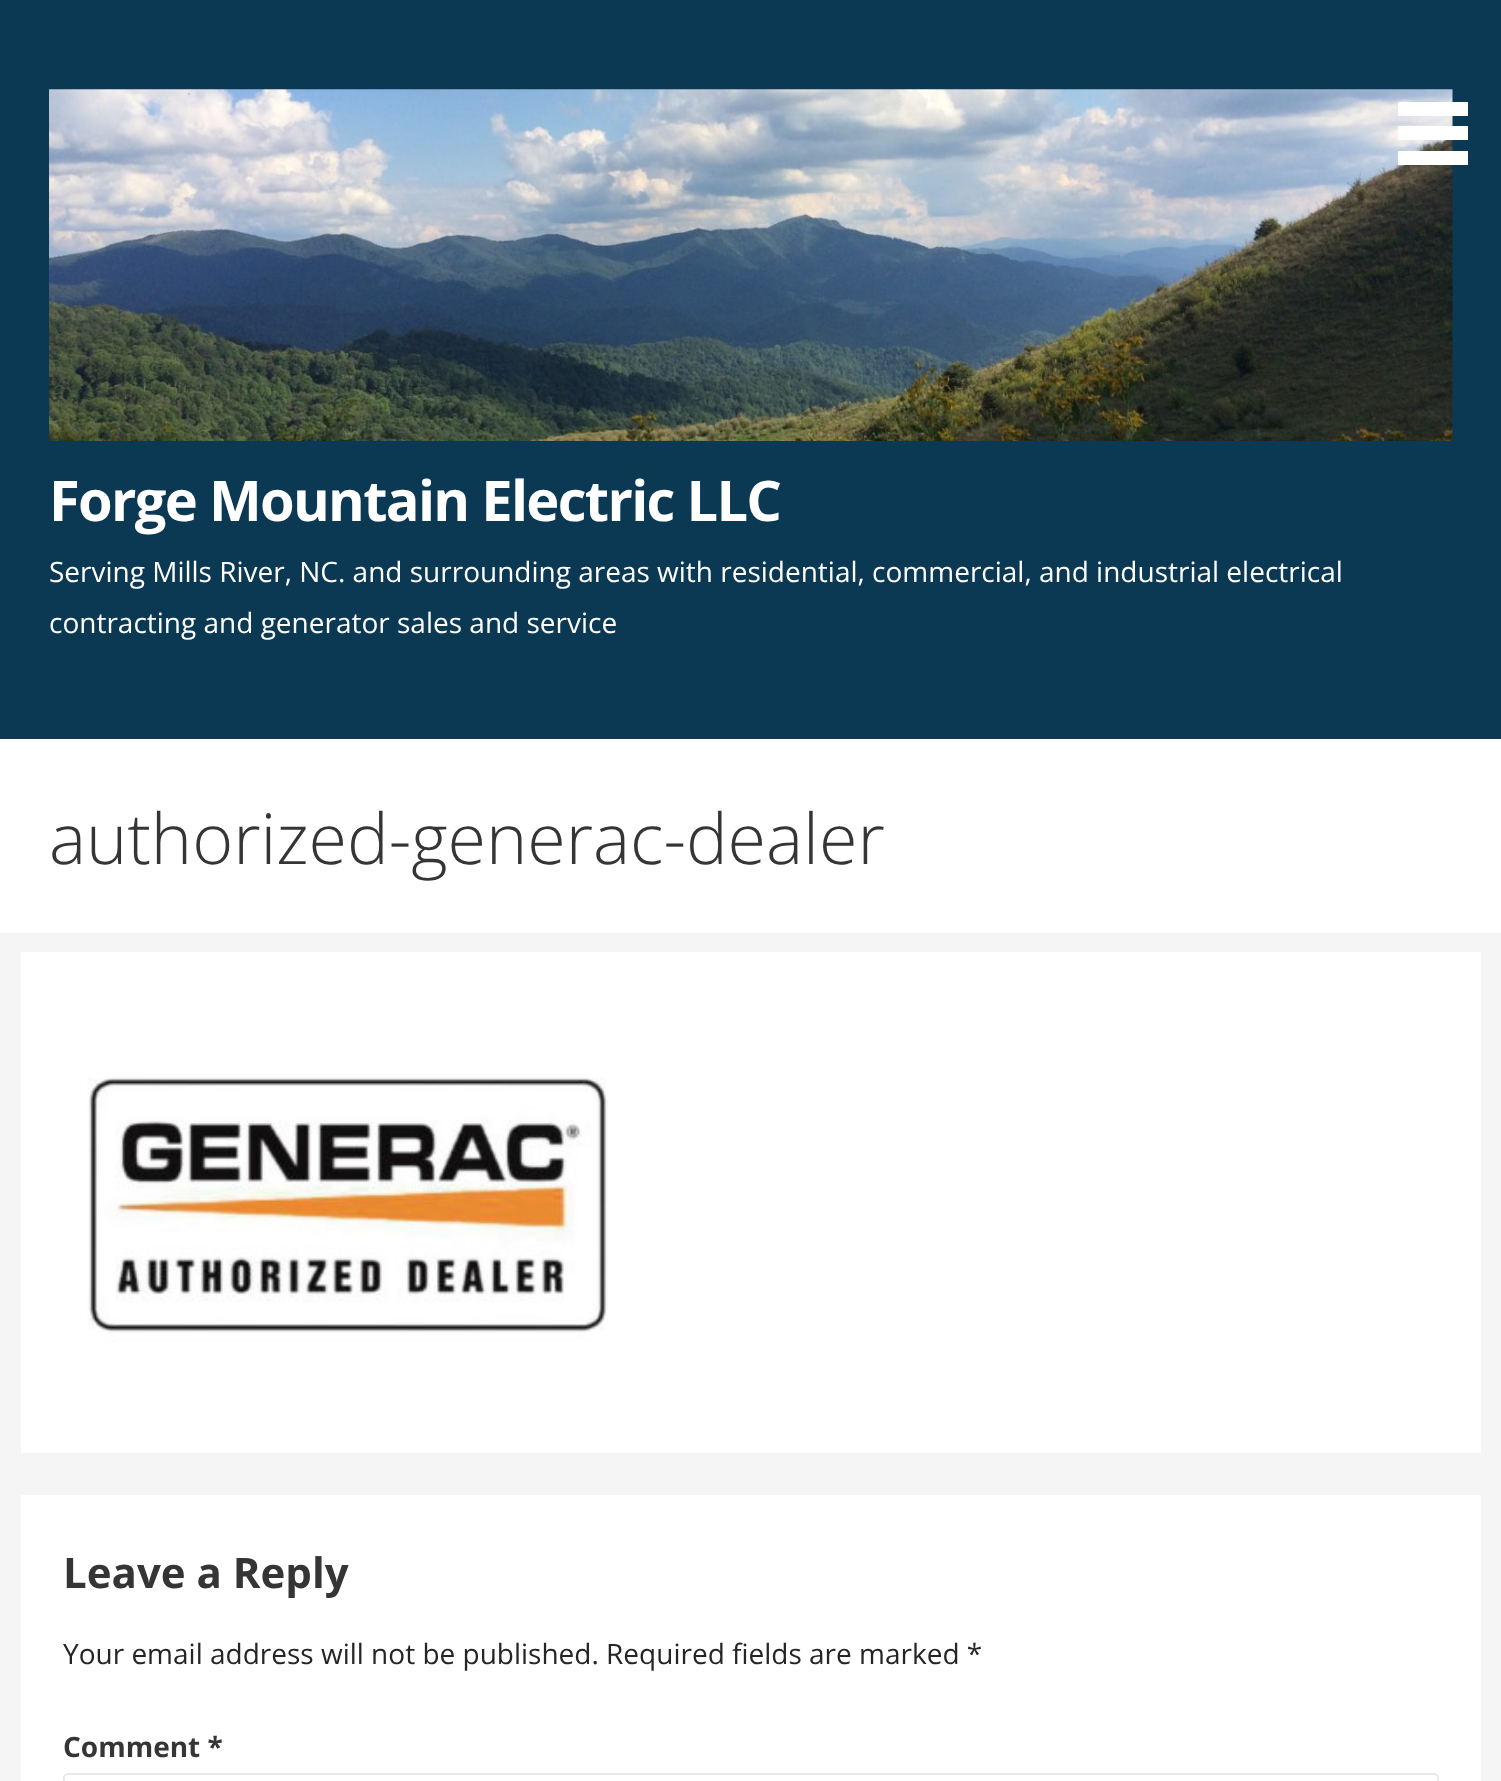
<svg xmlns="http://www.w3.org/2000/svg" width="1501" height="1781" viewBox="0 0 1501 1781">
  <style>
    .t1 { font: bold 56px Open Sans; letter-spacing: -1.7px; fill: #fff; }
    .t2 { font: 28px Open Sans; fill: #fff; }
    .t3 { font: 300 70px Open Sans; fill: #353535; }
    .t4 { font: bold 42px Open Sans; fill: #353535; }
    .t5 { font: 28px Open Sans; fill: #252525; }
    .t6 { font: bold 28px Open Sans; fill: #353535; }
  </style>
  <rect width="100%" height="100%" fill="#f5f5f5"/>
  <rect x="0" y="0" width="1501" height="739" fill="#0b3954"/>
  <image x="49" y="89" width="1404" height="352" href="images/1.png"/>
  <rect x="1398" y="102" width="70" height="14" fill="#fff"/>
  <rect x="1398" y="126" width="70" height="14" fill="#fff"/>
  <rect x="1398" y="151" width="70" height="14" fill="#fff"/>
  <text x="49" y="521" class="t1">Forge Mountain Electric LLC</text>
  <text x="49" y="582" class="t2">Serving Mills River, NC. and surrounding areas with residential, commercial, and industrial electrical</text>
  <text x="49" y="633" class="t2">contracting and generator sales and service</text>
  <rect x="0" y="739" width="1501" height="194" fill="#fff"/>
  <text x="49" y="864" class="t3">authorized-generac-dealer</text>
  <rect x="21" y="952" width="1460" height="501" fill="#fff"/>
  <image x="87" y="1077" width="521" height="265" href="images/2.png"/>
  <rect x="21" y="1495" width="1460" height="286" fill="#fff"/>
  <text x="63" y="1588" class="t4">Leave a Reply</text>
  <text x="63" y="1664" class="t5">Your email address will not be published. Required fields are marked *</text>
  <text x="63" y="1757" class="t6">Comment *</text>
  <rect x="64" y="1774" width="1374" height="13" rx="4" fill="none" stroke="#e9e9e9" stroke-width="2"/>
</svg>
